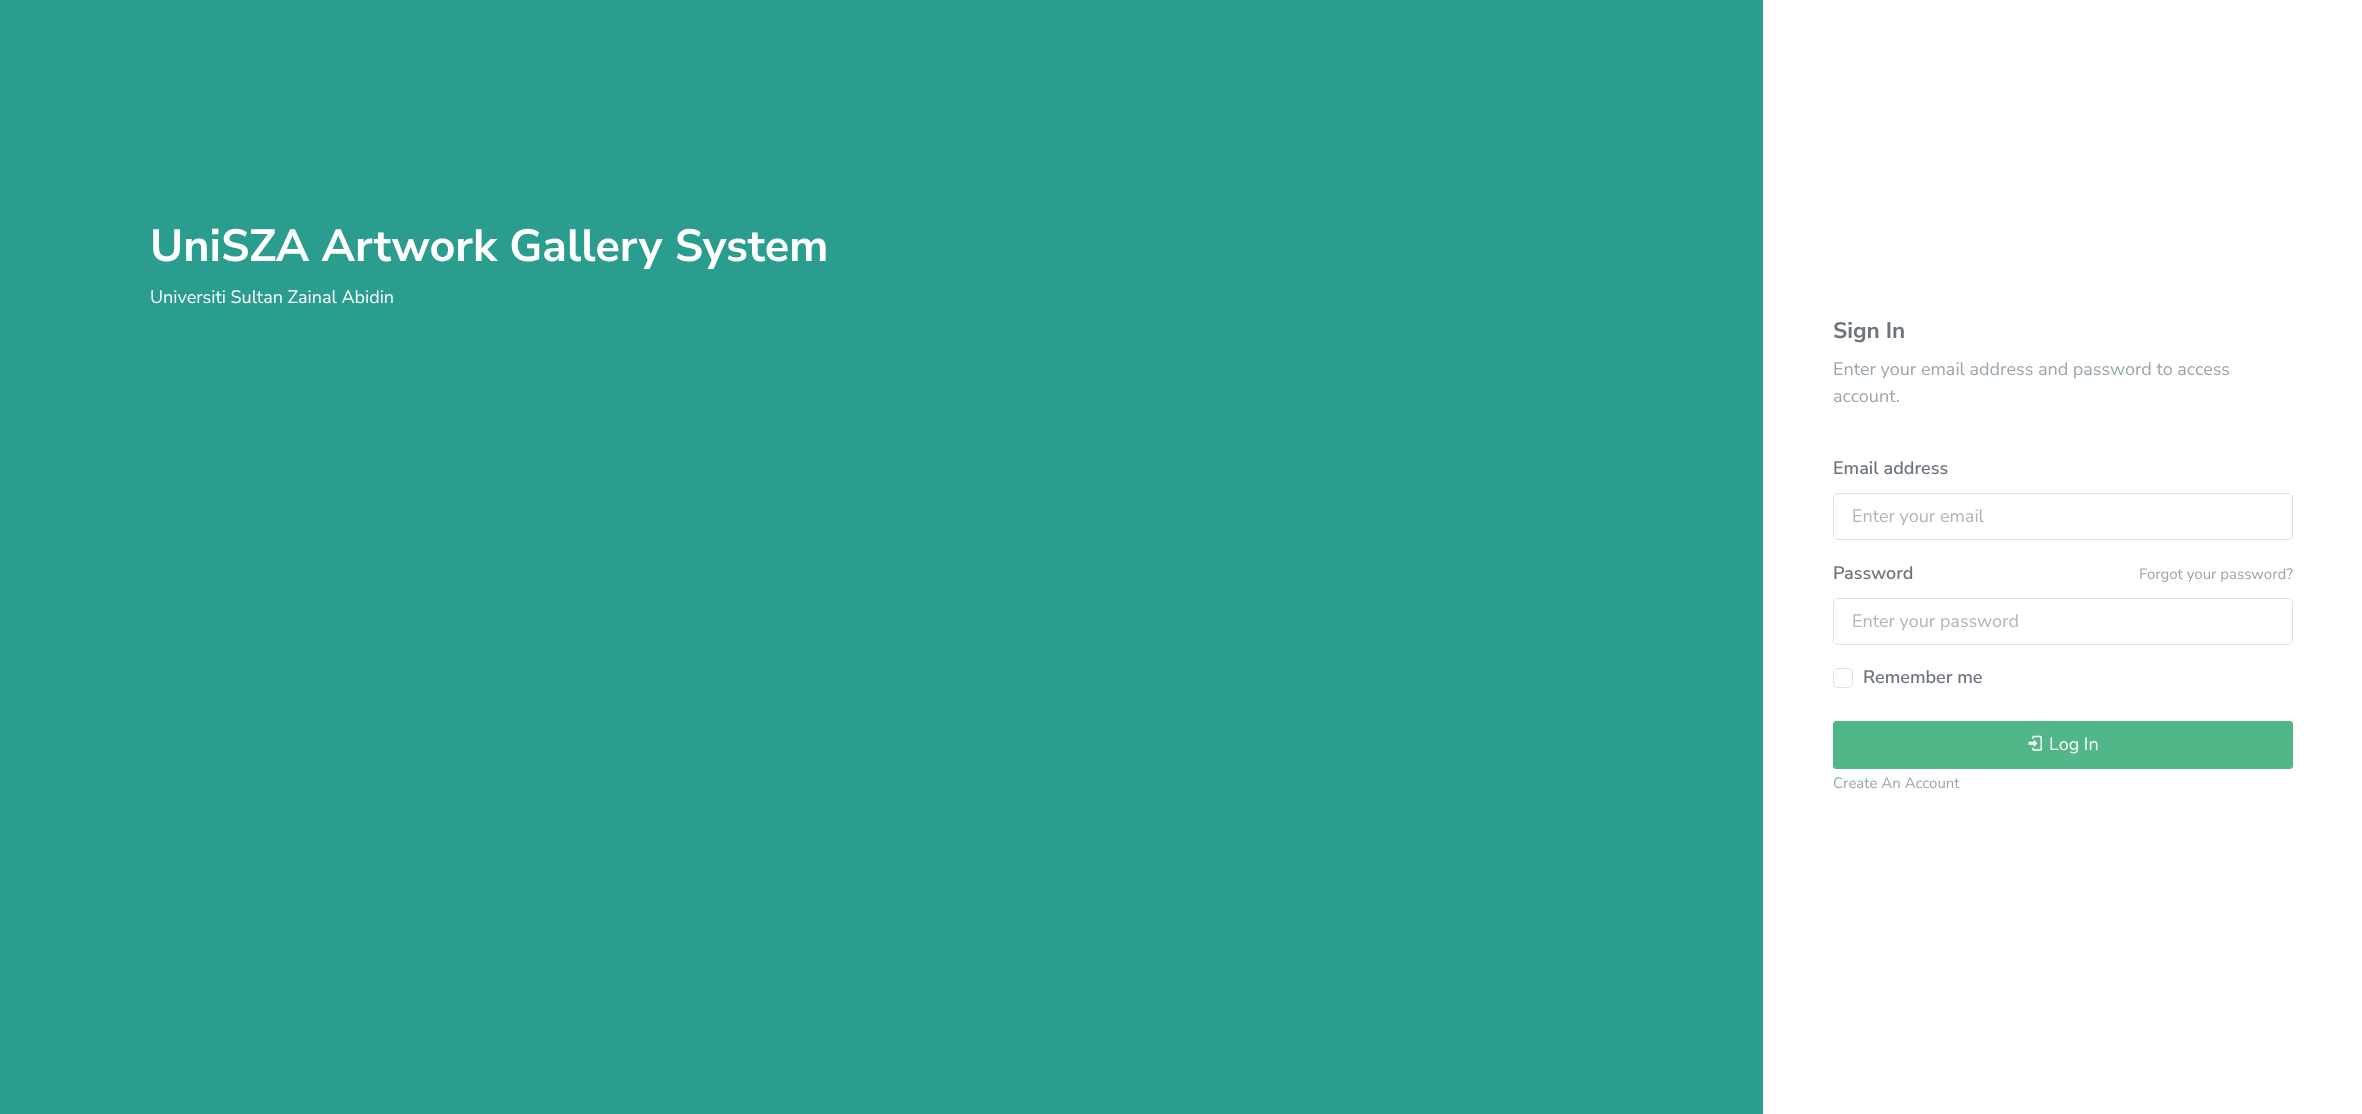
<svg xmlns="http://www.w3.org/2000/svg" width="2362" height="1114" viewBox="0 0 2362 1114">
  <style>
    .t1 { font: bold 45px Nunito Sans; fill: #fff; }
    .t2 { font: 18px Nunito Sans; fill: #fff; }
    .t3 { font: bold 22.5px Nunito Sans; fill: #6c757d; }
    .t4 { font: 18px Nunito Sans; fill: #98a6ad; }
    .t5 { font: 600 18px Nunito Sans; fill: #6c757d; }
    .t6 { font: 18px Nunito Sans; fill: #adb5bd; }
    .t7 { font: 15px Nunito Sans; fill: #98a6ad; }
  </style>
  <rect width="100%" height="100%" fill="#2a9d8f"/>
  <text x="150" y="261" class="t1">UniSZA Artwork Gallery System</text>
  <text x="150" y="303" class="t2">Universiti Sultan Zainal Abidin</text>
  <rect x="1763" y="0" width="599" height="1114" fill="#fff"/>
  <text x="1833" y="338" class="t3">Sign In</text>
  <text x="1833" y="375" class="t4">Enter your email address and password to access</text>
  <text x="1833" y="402" class="t4">account.</text>
  <text x="1833" y="474" class="t5">Email address</text>
  <rect x="1833.5" y="493.5" width="459" height="46" rx="4.5" fill="none" stroke="#dee2e6"/>
  <text x="1852" y="522" class="t6">Enter your email</text>
  <text x="1833" y="579" class="t5">Password</text>
  <text x="2139" y="579" class="t7">Forgot your password?</text>
  <rect x="1833.5" y="598.5" width="459" height="46" rx="4.5" fill="none" stroke="#dee2e6"/>
  <text x="1852" y="627" class="t6">Enter your password</text>
  <rect x="1833.5" y="668.5" width="19" height="19" rx="4.5" fill="none" stroke="#dee2e6"/>
  <text x="1863" y="683" class="t5">Remember me</text>
  <rect x="1833.5" y="721.5" width="459" height="47" rx="2.5" fill="#52b788" stroke="#52b788"/>
  <image x="2028" y="735" width="14" height="16" href="images/1.png"/>
  <text x="2049" y="750" class="t2">Log In</text>
  <text x="1833" y="788" class="t7">Create An Account</text>
</svg>
